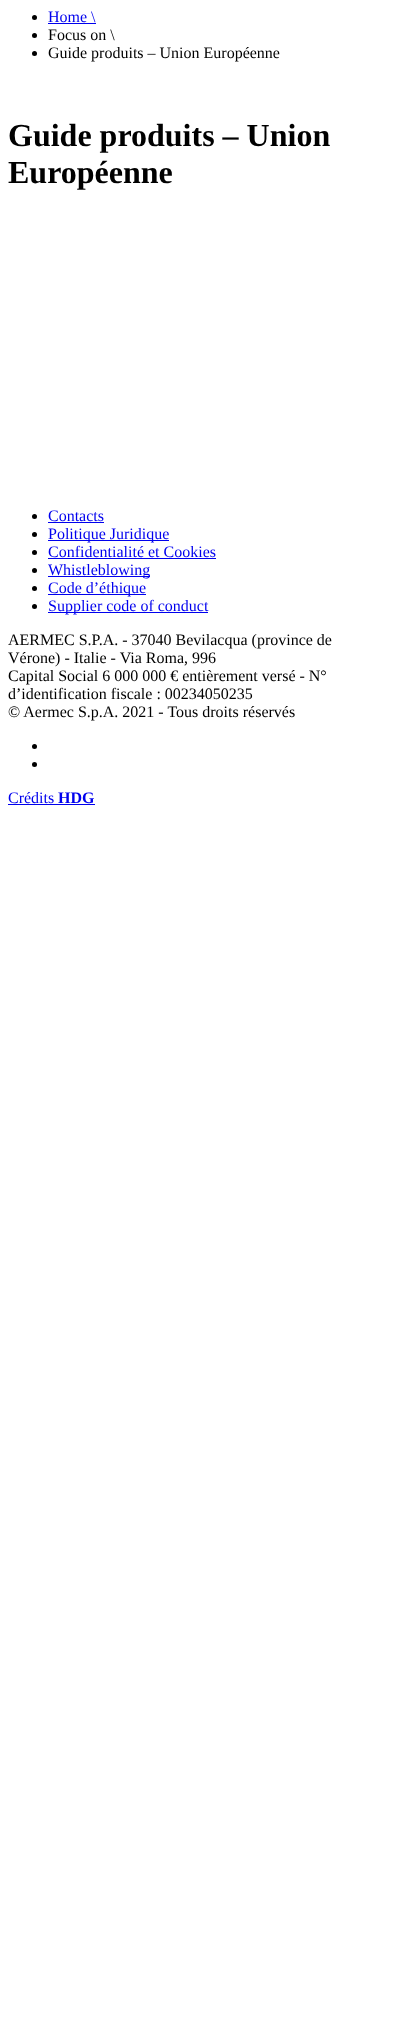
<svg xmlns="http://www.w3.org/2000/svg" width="395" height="2039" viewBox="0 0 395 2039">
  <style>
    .t1 { font: 16px Liberation Serif; fill: #00e; }
    .t2 { font: 16px Liberation Serif; fill: #000; }
    .t3 { font: bold 32px Liberation Serif; fill: #000; }
    .t4 { font: bold 16px Liberation Serif; fill: #00e; }
  </style>
  <rect width="100%" height="100%" fill="#fff"/>
  <circle cx="34.5" cy="17.5" r="2.5" fill="#000"/>
  <text x="48" y="22" class="t1">Home \</text>
  <rect x="48" y="23" width="48" height="1" fill="#00e"/>
  <circle cx="34.5" cy="35.5" r="2.5" fill="#000"/>
  <text x="48" y="40" class="t2">Focus on \</text>
  <circle cx="34.5" cy="53.5" r="2.5" fill="#000"/>
  <text x="48" y="58" class="t2">Guide produits – Union Européenne</text>
  <text x="8" y="146" class="t3">Guide produits – Union</text>
  <text x="8" y="183" class="t3">Européenne</text>
  <circle cx="34.5" cy="516.5" r="2.5" fill="#000"/>
  <text x="48" y="521" class="t1">Contacts</text>
  <rect x="48" y="522" width="56" height="1" fill="#00e"/>
  <circle cx="34.5" cy="534.5" r="2.5" fill="#000"/>
  <rect x="48" y="540" width="121" height="1" fill="#00e"/>
  <text x="48" y="539" class="t1">Politique Juridique</text>
  <circle cx="34.5" cy="552.5" r="2.5" fill="#000"/>
  <text x="48" y="557" class="t1">Confidentialité et Cookies</text>
  <rect x="48" y="558" width="168" height="1" fill="#00e"/>
  <circle cx="34.5" cy="570.5" r="2.5" fill="#000"/>
  <rect x="48" y="576" width="102" height="1" fill="#00e"/>
  <text x="48" y="575" class="t1">Whistleblowing</text>
  <circle cx="34.5" cy="588.5" r="2.5" fill="#000"/>
  <rect x="48" y="594" width="98" height="1" fill="#00e"/>
  <text x="48" y="593" class="t1">Code d’éthique</text>
  <circle cx="34.5" cy="606.5" r="2.5" fill="#000"/>
  <rect x="48" y="612" width="160" height="1" fill="#00e"/>
  <text x="48" y="611" class="t1">Supplier code of conduct</text>
  <text x="8" y="645" class="t2">AERMEC S.P.A. - 37040 Bevilacqua (province de</text>
  <text x="8" y="663" class="t2">Vérone) - Italie - Via Roma, 996</text>
  <text x="8" y="681" class="t2">Capital Social 6 000 000 € entièrement versé - N°</text>
  <text x="8" y="699" class="t2">d’identification fiscale : 00234050235</text>
  <text x="8" y="717" class="t2">© Aermec S.p.A. 2021 - Tous droits réservés</text>
  <circle cx="34.5" cy="746.5" r="2.5" fill="#000"/>
  <circle cx="34.5" cy="764.5" r="2.5" fill="#000"/>
  <text x="8" y="803" class="t1">Crédits</text>
  <text x="58" y="803" class="t4">HDG</text>
  <rect x="8" y="804" width="87" height="1" fill="#00e"/>
</svg>
